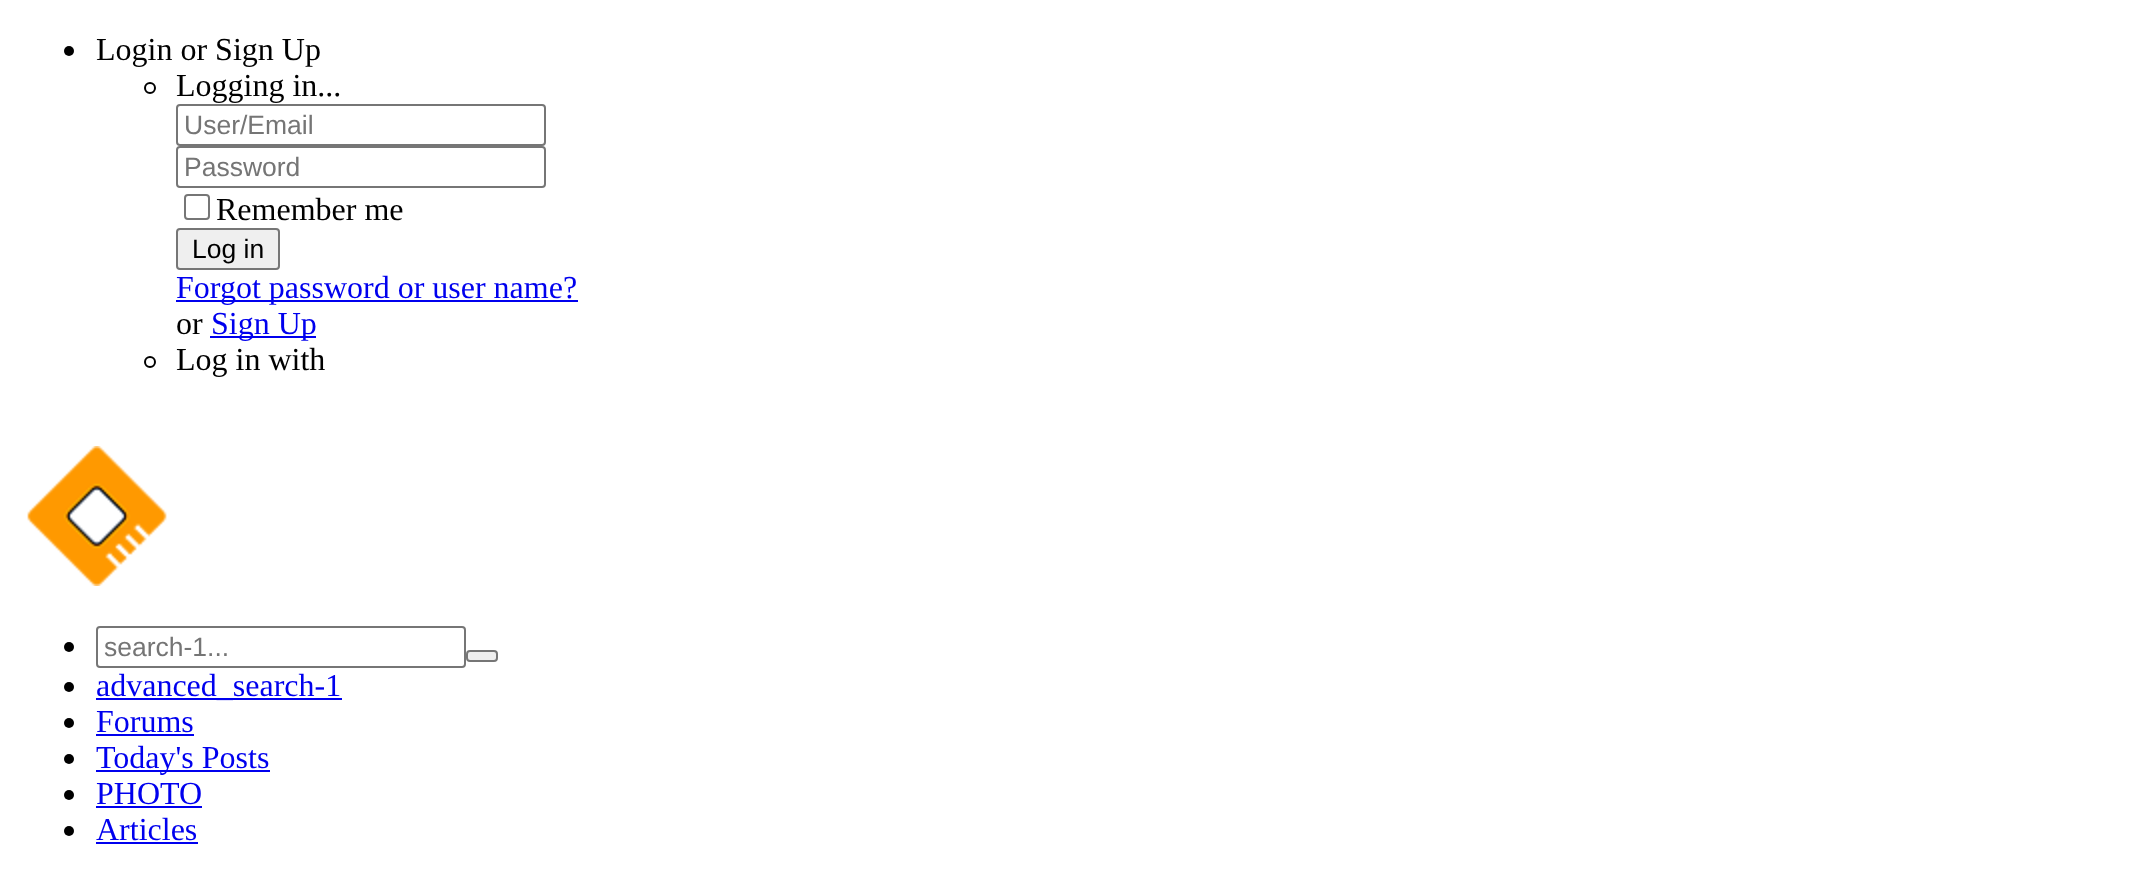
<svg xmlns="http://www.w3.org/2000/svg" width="2143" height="874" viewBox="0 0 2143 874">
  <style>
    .t1 { font: 32px Liberation Serif; fill: #000; }
    .t2 { font: 26.5px Liberation Sans; fill: #757575; }
    .t3 { font: 26.5px Liberation Sans; fill: #000; }
    .t4 { font: 32px Liberation Serif; fill: #00e; }
  </style>
  <rect width="100%" height="100%" fill="#fff"/>
  <circle cx="69" cy="51" r="5" fill="#000"/>
  <text x="96" y="60" class="t1">Login or Sign Up</text>
  <circle cx="150" cy="88" r="5" fill="none" stroke="#000" stroke-width="2"/>
  <text x="176" y="96" class="t1">Logging in...</text>
  <rect x="177" y="105" width="368" height="40" rx="3" fill="none" stroke="#767676" stroke-width="2"/>
  <text x="184" y="134" class="t2">User/Email</text>
  <rect x="177" y="147" width="368" height="40" rx="3" fill="none" stroke="#767676" stroke-width="2"/>
  <text x="184" y="176" class="t2">Password</text>
  <rect x="185" y="195" width="24" height="24" rx="3" fill="none" stroke="#767676" stroke-width="2"/>
  <text x="216" y="220" class="t1">Remember me</text>
  <rect x="177" y="229" width="102" height="40" rx="3" fill="#efefef" stroke="#767676" stroke-width="2"/>
  <text x="192" y="258" class="t3">Log in</text>
  <rect x="176" y="300" width="402" height="2" fill="#00e"/>
  <text x="176" y="298" class="t4">Forgot password or user name?</text>
  <text x="176" y="334" class="t1">or</text>
  <rect x="210" y="336" width="106" height="2" fill="#00e"/>
  <text x="211" y="334" class="t4">Sign Up</text>
  <circle cx="150" cy="362" r="5" fill="none" stroke="#000" stroke-width="2"/>
  <text x="176" y="370" class="t1">Log in with</text>
  <image x="27" y="446" width="140" height="140" href="images/1.png"/>
  <circle cx="69" cy="647" r="5" fill="#000"/>
  <rect x="97" y="627" width="368" height="40" rx="3" fill="none" stroke="#767676" stroke-width="2"/>
  <text x="104" y="656" class="t2">search-1...</text>
  <rect x="467" y="651" width="30" height="10" rx="3" fill="#efefef" stroke="#767676" stroke-width="2"/>
  <circle cx="69" cy="687" r="5" fill="#000"/>
  <rect x="96" y="698" width="246" height="2" fill="#00e"/>
  <text x="96" y="696" class="t4">advanced_search-1</text>
  <circle cx="69" cy="723" r="5" fill="#000"/>
  <text x="96" y="732" class="t4">Forums</text>
  <rect x="96" y="734" width="98" height="2" fill="#00e"/>
  <circle cx="69" cy="759" r="5" fill="#000"/>
  <rect x="96" y="770" width="174" height="2" fill="#00e"/>
  <text x="96" y="768" class="t4">Today's Posts</text>
  <circle cx="69" cy="795" r="5" fill="#000"/>
  <text x="96" y="804" class="t4">PHOTO</text>
  <rect x="96" y="806" width="106" height="2" fill="#00e"/>
  <circle cx="69" cy="831" r="5" fill="#000"/>
  <text x="96" y="840" class="t4">Articles</text>
  <rect x="96" y="842" width="102" height="2" fill="#00e"/>
</svg>
